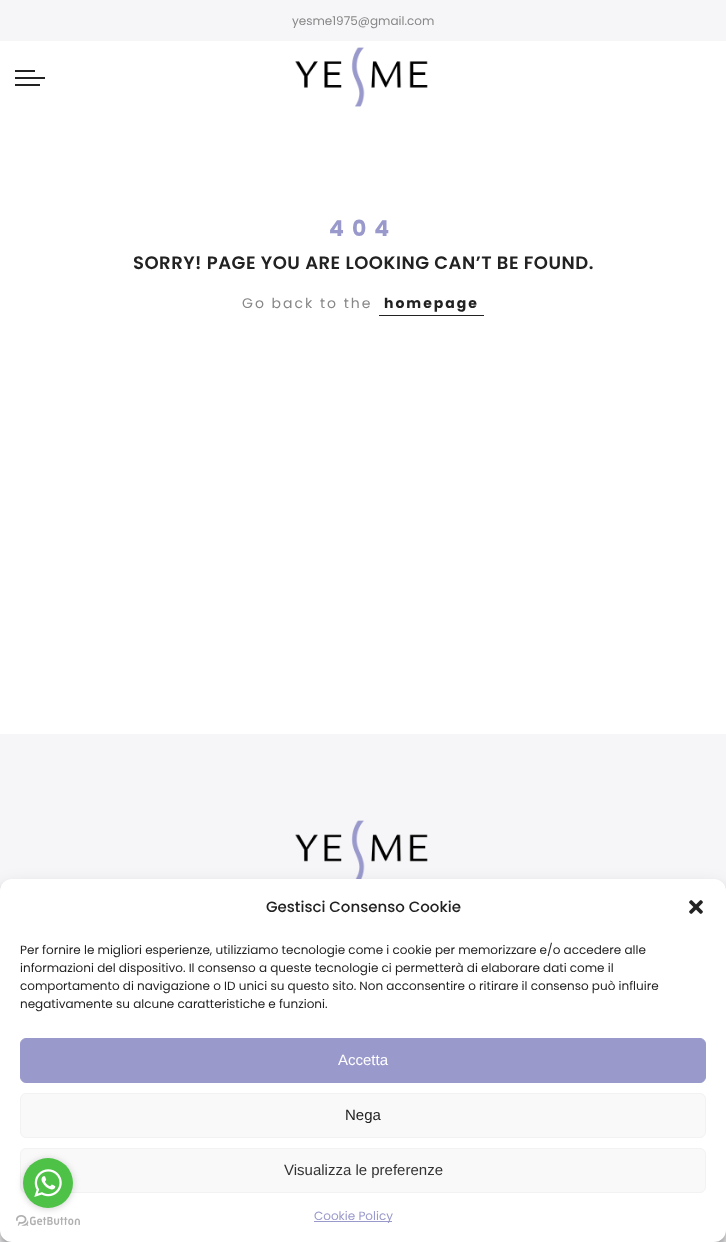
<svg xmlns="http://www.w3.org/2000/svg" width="726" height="1242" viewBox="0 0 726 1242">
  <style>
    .t1 { font: 12px Poppins; fill: #878787; }
    .t2 { font: bold 22px Poppins; letter-spacing: 8px; fill: #99c; }
    .t3 { font: 600 18px Poppins; letter-spacing: 0.5px; fill: #222; }
    .t4 { font: 14px Poppins; letter-spacing: 2px; fill: #878787; }
    .t5 { font: bold 14px Poppins; letter-spacing: 2px; fill: #222; }
    .t6 { font: 500 15px Poppins; fill: #222; }
    .t7 { font: 12px Poppins; fill: #222; }
    .t8 { font: 15px Liberation Sans; fill: #fff; }
    .t9 { font: 15px Liberation Sans; fill: #222; }
    .t10 { font: 15px Liberation Sans; fill: #333; }
    .t11 { font: 12px Poppins; fill: #99c; }
  </style>
  <rect width="100%" height="100%" fill="#fff"/>
  <rect x="0" y="0" width="726" height="41" fill="#f6f6f8"/>
  <text x="292" y="25" class="t1">yesme1975@gmail.com</text>
  <rect x="15" y="70" width="20" height="2" fill="#222"/>
  <rect x="15" y="77" width="30" height="2" fill="#222"/>
  <rect x="15" y="84" width="25" height="2" fill="#222"/>
  <image x="295" y="47" width="133" height="60" href="images/1.png"/>
  <text x="329" y="236" class="t2">404</text>
  <text x="133" y="269" class="t3">SORRY! PAGE YOU ARE LOOKING CAN’T BE FOUND.</text>
  <text x="242" y="308" class="t4">Go back to the</text>
  <text x="384" y="308" class="t5">homepage</text>
  <rect x="379" y="315" width="105" height="1" fill="#222"/>
  <rect x="0" y="734" width="726" height="508" fill="#f6f6f8"/>
  <image x="295" y="820" width="133" height="59" href="images/2.png"/>
  <rect x="0" y="885" width="726" height="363" rx="12" fill="#0000003b" filter="blur(3px)"/>
  <rect x="0" y="889" width="726" height="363" rx="12" fill="#00000030" filter="blur(10px)"/>
  <rect x="0" y="879" width="726" height="363" rx="12" fill="#fff"/>
  <text x="266" y="912" class="t6">Gestisci Consenso Cookie</text>
  <image x="689" y="900" width="14" height="14" href="images/3.png"/>
  <text x="20" y="954" class="t7">Per fornire le migliori esperienze, utilizziamo tecnologie come i cookie per memorizzare e/o accedere alle</text>
  <text x="20" y="972" class="t7">informazioni del dispositivo. Il consenso a queste tecnologie ci permetterà di elaborare dati come il</text>
  <text x="20" y="990" class="t7">comportamento di navigazione o ID unici su questo sito. Non acconsentire o ritirare il consenso può influire</text>
  <text x="20" y="1008" class="t7">negativamente su alcune caratteristiche e funzioni.</text>
  <rect x="20.5" y="1038.5" width="685" height="44" rx="5.5" fill="#99c" stroke="#99c"/>
  <text x="338" y="1065" class="t8">Accetta</text>
  <rect x="20.5" y="1093.5" width="685" height="44" rx="5.5" fill="#f9f9f9" stroke="#f2f2f2"/>
  <text x="345" y="1120" class="t9">Nega</text>
  <rect x="20.5" y="1148.5" width="685" height="44" rx="5.5" fill="#f9f9f9" stroke="#f2f2f2"/>
  <text x="284" y="1175" class="t10">Visualizza le preferenze</text>
  <rect x="314" y="1221" width="78" height="1" fill="#99c"/>
  <text x="314" y="1220" class="t11">Cookie Policy</text>
  <image x="16" y="1215" width="64" height="11" href="images/5.png"/>
  <rect x="23" y="1159" width="50" height="50" rx="25" fill="#88888866" filter="blur(3.5px)"/>
  <circle cx="48" cy="1183" r="25" fill="#4dc247"/>
  <image x="34" y="1169" width="28" height="28" href="images/4.png"/>
</svg>
